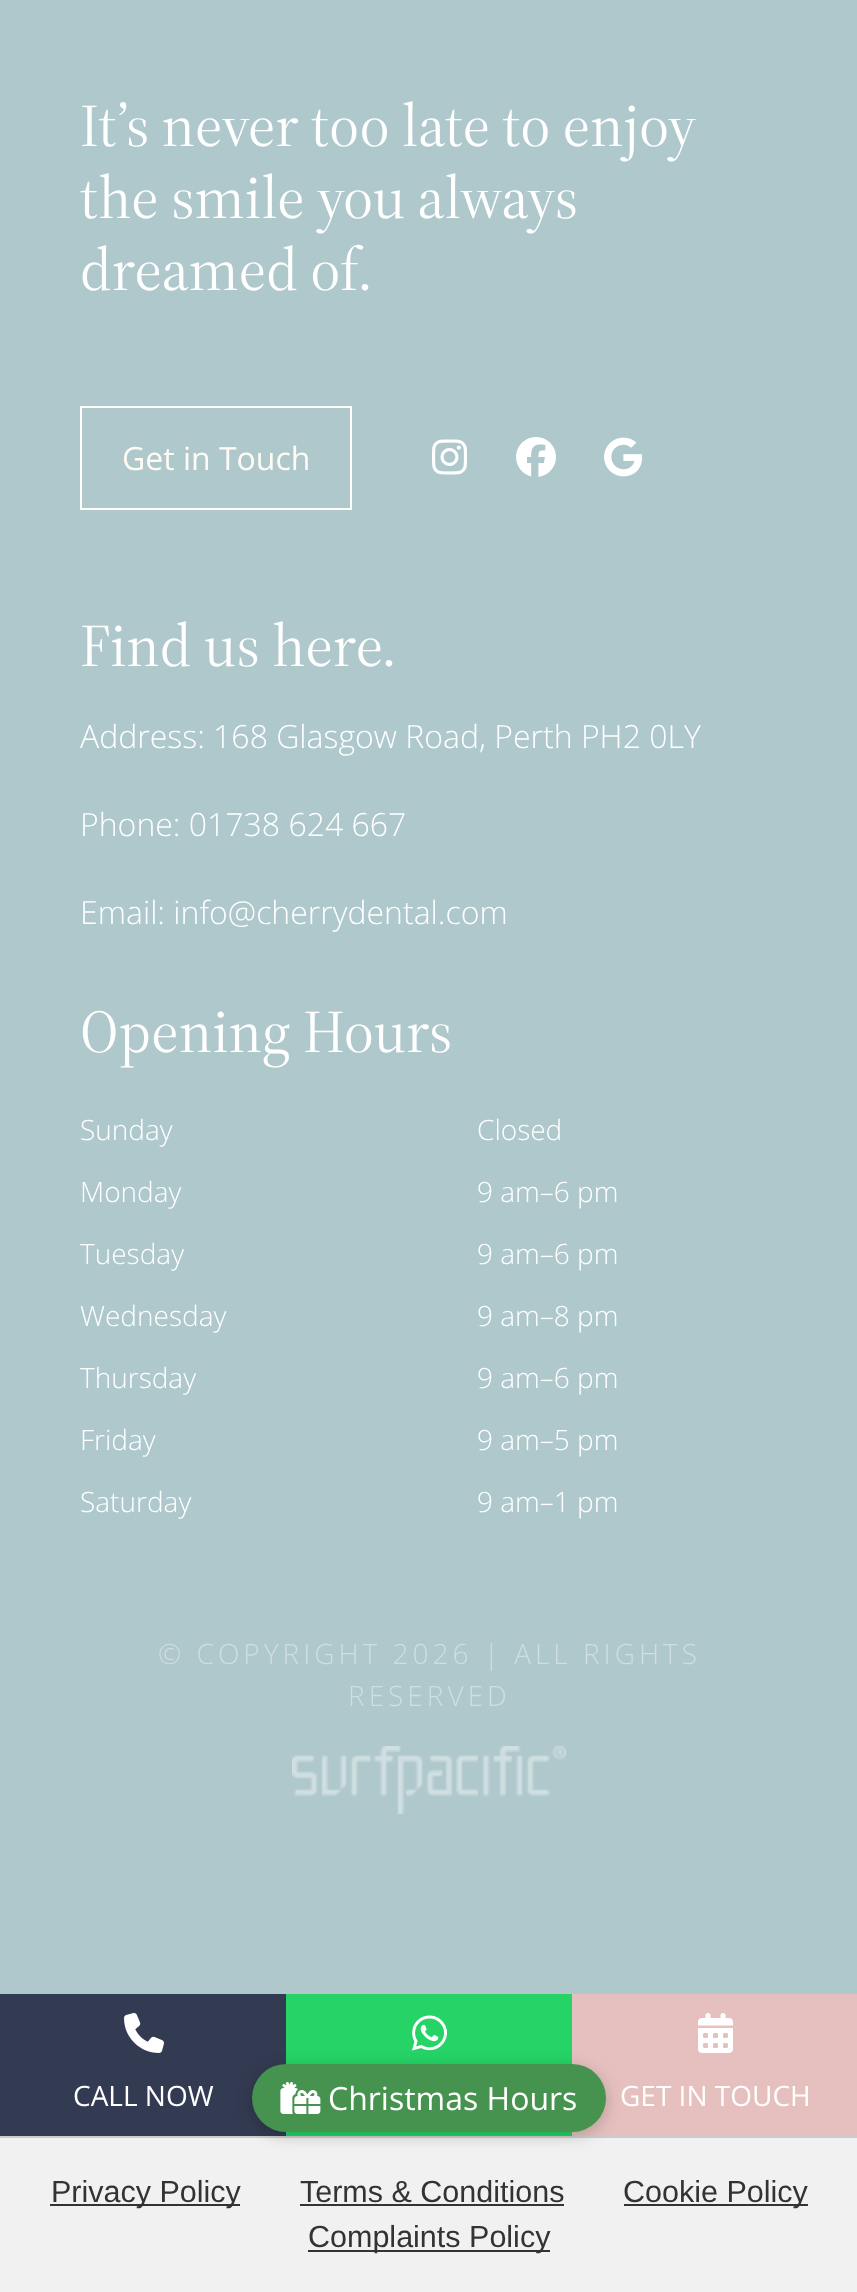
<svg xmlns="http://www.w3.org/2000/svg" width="857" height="2292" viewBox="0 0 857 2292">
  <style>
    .t1 { font: 60px 'Source Serif 4'; fill: #fff; }
    .t2 { font: 32px Open Sans; fill: #fffbf4; }
    .t3 { font: 300 32px Open Sans; fill: #fff; }
    .t4 { font: 300 28px Open Sans; fill: #fff; }
    .t5 { font: 300 28px Open Sans; letter-spacing: 4px; fill: #cfdee0; }
    .t6 { font: 28px Open Sans; fill: #fff; }
    .t7 { font: 32px Open Sans; fill: #fff; }
    .t8 { font: 30.5px Liberation Sans; fill: #333; }
  </style>
  <rect width="100%" height="100%" fill="#afc8cb"/>
  <text x="80" y="146" class="t1">It’s never too late to enjoy</text>
  <text x="80" y="218" class="t1">the smile you always</text>
  <text x="80" y="290" class="t1">dreamed of.</text>
  <rect x="81" y="407" width="270" height="102" fill="none" stroke="#fff" stroke-width="2"/>
  <text x="122" y="470" class="t2">Get in Touch</text>
  <image x="432" y="439" width="35" height="36" href="images/1.png"/>
  <image x="516" y="437" width="40" height="40" href="images/2.png"/>
  <image x="604" y="437" width="39" height="40" href="images/3.png"/>
  <text x="80" y="666" class="t1">Find us here.</text>
  <text x="80" y="748" class="t3">Address: 168 Glasgow Road, Perth PH2 0LY</text>
  <text x="80" y="836" class="t3">Phone: 01738 624 667</text>
  <text x="80" y="924" class="t3">Email: info@cherrydental.com</text>
  <text x="80" y="1052" class="t1">Opening Hours</text>
  <text x="80" y="1140" class="t4">Sunday</text>
  <text x="477" y="1140" class="t4">Closed</text>
  <text x="80" y="1202" class="t4">Monday</text>
  <text x="477" y="1202" class="t4">9 am–6 pm</text>
  <text x="80" y="1264" class="t4">Tuesday</text>
  <text x="477" y="1264" class="t4">9 am–6 pm</text>
  <text x="80" y="1326" class="t4">Wednesday</text>
  <text x="477" y="1326" class="t4">9 am–8 pm</text>
  <text x="80" y="1388" class="t4">Thursday</text>
  <text x="477" y="1388" class="t4">9 am–6 pm</text>
  <text x="80" y="1450" class="t4">Friday</text>
  <text x="477" y="1450" class="t4">9 am–5 pm</text>
  <text x="80" y="1512" class="t4">Saturday</text>
  <text x="477" y="1512" class="t4">9 am–1 pm</text>
  <text x="158" y="1664" class="t5">© COPYRIGHT 2026 | ALL RIGHTS</text>
  <text x="348" y="1706" class="t5">RESERVED</text>
  <image x="292" y="1746" width="274" height="68" href="images/4.png"/>
  <rect x="0" y="1994" width="286" height="142" fill="#333b52"/>
  <image x="124" y="2013" width="40" height="40" href="images/5.png"/>
  <text x="73" y="2106" class="t6">CALL NOW</text>
  <rect x="286" y="1994" width="286" height="142" fill="#25d366"/>
  <image x="412" y="2015" width="35" height="36" href="images/6.png"/>
  <rect x="572" y="1994" width="285" height="142" fill="#e5c0be"/>
  <image x="698" y="2013" width="35" height="40" href="images/7.png"/>
  <text x="620" y="2106" class="t6">GET IN TOUCH</text>
  <rect x="0" y="2138" width="857" height="154" fill="#f1f1f1"/>
  <rect x="0" y="2136" width="857" height="2" fill="#ccc"/>
  <rect x="252" y="2068" width="354" height="68" rx="34" fill="#00000033" filter="blur(8px)"/>
  <rect x="252" y="2064" width="354" height="68" rx="34" fill="#45934f"/>
  <image x="280" y="2082" width="41" height="32" href="images/8.png"/>
  <text x="328" y="2110" class="t7">Christmas Hours</text>
  <rect x="50" y="2204" width="190" height="2" fill="#333"/>
  <text x="51" y="2202" class="t8">Privacy Policy</text>
  <text x="300" y="2202" class="t8">Terms &amp; Conditions</text>
  <rect x="300" y="2204" width="264" height="2" fill="#333"/>
  <rect x="624" y="2204" width="184" height="2" fill="#333"/>
  <text x="623" y="2202" class="t8">Cookie Policy</text>
  <rect x="308" y="2250" width="242" height="2" fill="#333"/>
  <text x="308" y="2247" class="t8">Complaints Policy</text>
</svg>
